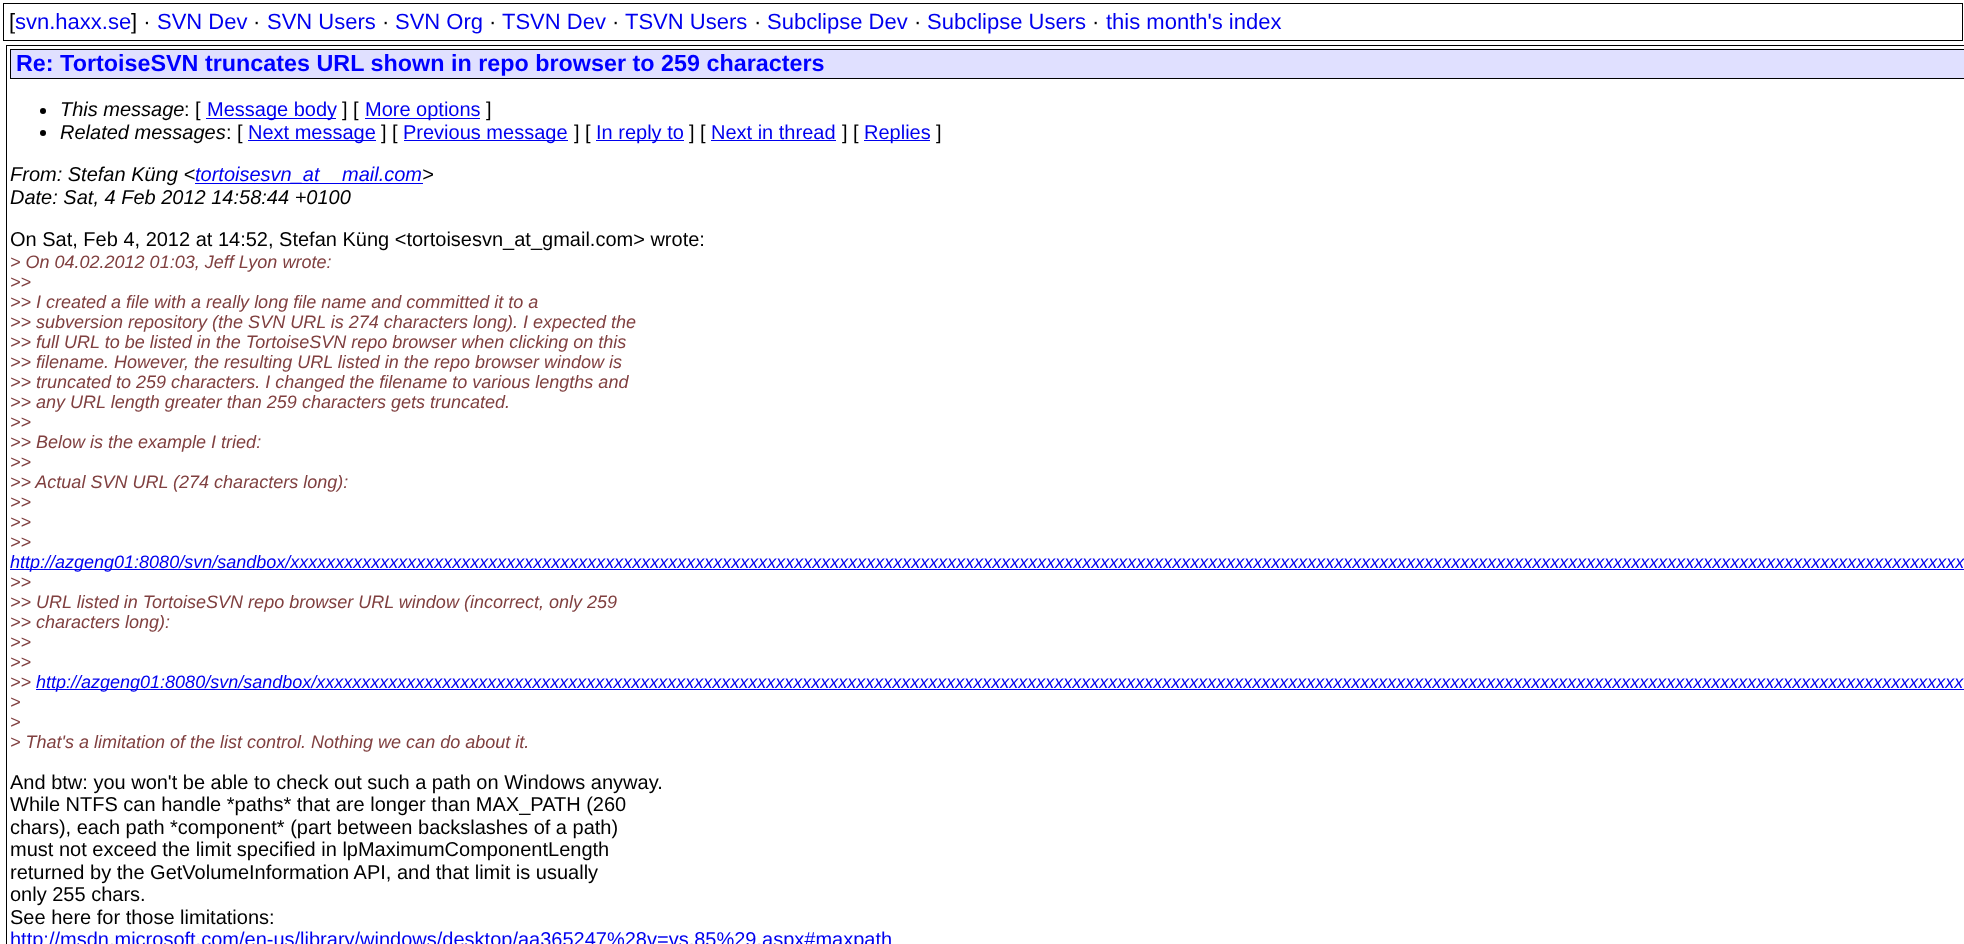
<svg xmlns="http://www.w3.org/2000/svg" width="1964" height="944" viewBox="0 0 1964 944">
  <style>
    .t1 { font: 22px Liberation Sans; fill: #000; }
    .t2 { font: 22px Liberation Sans; fill: #00e; }
    .t3 { font: bold 23.35px Liberation Sans; fill: #00f; }
    .t4 { font: italic 20px Liberation Sans; fill: #000; }
    .t5 { font: 20px Liberation Sans; fill: #000; }
    .t6 { font: 20px Liberation Sans; fill: #00e; }
    .t7 { font: italic 20px Liberation Sans; fill: #00e; }
    .t8 { font: italic 18px Liberation Sans; fill: #804040; }
    .t9 { font: italic 18px Liberation Sans; fill: #00e; }
  </style>
  <rect width="100%" height="100%" fill="#fff"/>
  <rect x="3.5" y="3.5" width="1959" height="37" fill="none" stroke="#000"/>
  <text x="9" y="29" class="t1">[</text>
  <text x="15" y="29" class="t2">svn.haxx.se</text>
  <text x="131" y="29" class="t1">] ·</text>
  <text x="157" y="29" class="t2">SVN Dev</text>
  <text x="253" y="29" class="t1">·</text>
  <text x="267" y="29" class="t2">SVN Users</text>
  <text x="382" y="29" class="t1">·</text>
  <text x="395" y="29" class="t2">SVN Org</text>
  <text x="489" y="29" class="t1">·</text>
  <text x="502" y="29" class="t2">TSVN Dev</text>
  <text x="612" y="29" class="t1">·</text>
  <text x="625" y="29" class="t2">TSVN Users</text>
  <text x="754" y="29" class="t1">·</text>
  <text x="767" y="29" class="t2">Subclipse Dev</text>
  <text x="914" y="29" class="t1">·</text>
  <text x="927" y="29" class="t2">Subclipse Users</text>
  <text x="1092" y="29" class="t1">·</text>
  <text x="1106" y="29" class="t2">this month's index</text>
  <rect x="6.5" y="45.5" width="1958" height="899" fill="none" stroke="#000"/>
  <rect x="10.5" y="49.5" width="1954" height="29" fill="#e0e0ff" stroke="#000"/>
  <text x="16" y="71" class="t3">Re: TortoiseSVN truncates URL shown in repo browser to 259 characters</text>
  <circle cx="43" cy="111" r="3" fill="#000"/>
  <text x="60" y="116" class="t4">This message</text>
  <text x="184" y="116" class="t5">: [</text>
  <rect x="206" y="118" width="130" height="1" fill="#00e"/>
  <text x="207" y="116" class="t6">Message body</text>
  <text x="342" y="116" class="t5">] [</text>
  <rect x="365" y="118" width="115" height="1" fill="#00e"/>
  <text x="365" y="116" class="t6">More options</text>
  <text x="486" y="116" class="t5">]</text>
  <circle cx="43" cy="133" r="3" fill="#000"/>
  <text x="60" y="139" class="t4">Related messages</text>
  <text x="226" y="139" class="t5">: [</text>
  <rect x="248" y="140" width="128" height="1" fill="#00e"/>
  <text x="248" y="139" class="t6">Next message</text>
  <text x="381" y="139" class="t5">] [</text>
  <rect x="404" y="140" width="164" height="1" fill="#00e"/>
  <text x="403" y="139" class="t6">Previous message</text>
  <text x="574" y="139" class="t5">] [</text>
  <rect x="596" y="140" width="88" height="1" fill="#00e"/>
  <text x="596" y="139" class="t6">In reply to</text>
  <text x="689" y="139" class="t5">] [</text>
  <text x="711" y="139" class="t6">Next in thread</text>
  <rect x="711" y="140" width="125" height="1" fill="#00e"/>
  <text x="842" y="139" class="t5">] [</text>
  <rect x="864" y="140" width="66" height="1" fill="#00e"/>
  <text x="864" y="139" class="t6">Replies</text>
  <text x="936" y="139" class="t5">]</text>
  <text x="10" y="181" class="t4">From: Stefan Küng &lt;</text>
  <rect x="195" y="183" width="228" height="1" fill="#00e"/>
  <text x="195" y="181" class="t7">tortoisesvn_at</text>
  <text x="342" y="181" class="t7">mail.com</text>
  <text x="422" y="181" class="t4">&gt;</text>
  <text x="10" y="204" class="t4">Date: Sat, 4 Feb 2012 14:58:44 +0100</text>
  <text x="10" y="246" class="t5">On Sat, Feb 4, 2012 at 14:52, Stefan Küng &lt;tortoisesvn_at_gmail.com&gt; wrote:</text>
  <text x="10" y="268" class="t8">&gt; On 04.02.2012 01:03, Jeff Lyon wrote:</text>
  <text x="10" y="288" class="t8">&gt;&gt;</text>
  <text x="10" y="308" class="t8">&gt;&gt; I created a file with a really long file name and committed it to a</text>
  <text x="10" y="328" class="t8">&gt;&gt; subversion repository (the SVN URL is 274 characters long). I expected the</text>
  <text x="10" y="348" class="t8">&gt;&gt; full URL to be listed in the TortoiseSVN repo browser when clicking on this</text>
  <text x="10" y="368" class="t8">&gt;&gt; filename. However, the resulting URL listed in the repo browser window is</text>
  <text x="10" y="388" class="t8">&gt;&gt; truncated to 259 characters. I changed the filename to various lengths and</text>
  <text x="10" y="408" class="t8">&gt;&gt; any URL length greater than 259 characters gets truncated.</text>
  <text x="10" y="428" class="t8">&gt;&gt;</text>
  <text x="10" y="448" class="t8">&gt;&gt; Below is the example I tried:</text>
  <text x="10" y="468" class="t8">&gt;&gt;</text>
  <text x="10" y="488" class="t8">&gt;&gt; Actual SVN URL (274 characters long):</text>
  <text x="10" y="508" class="t8">&gt;&gt;</text>
  <text x="10" y="528" class="t8">&gt;&gt;</text>
  <text x="10" y="548" class="t8">&gt;&gt;</text>
  <rect x="10" y="569" width="1954" height="1" fill="#00e"/>
  <text x="10" y="568" class="t9">http://azgeng01:8080/svn/sandbox/xxxxxxxxxxxxxxxxxxxxxxxxxxxxxxxxxxxxxxxxxxxxxxxxxxxxxxxxxxxxxxxxxxxxxxxxxxxxxxxxxxxxxxxxxxxxxxxxxxxxxxxxxxxxxxxxxxxxxxxxxxxxxxxxxxxxxxxxxxxxxxxxxxxxxxxxxxxxxxxxxxxxxxxxxxxxxxxxxxxxxxxxxx</text>
  <text x="10" y="588" class="t8">&gt;&gt;</text>
  <text x="10" y="608" class="t8">&gt;&gt; URL listed in TortoiseSVN repo browser URL window (incorrect, only 259</text>
  <text x="10" y="628" class="t8">&gt;&gt; characters long):</text>
  <text x="10" y="648" class="t8">&gt;&gt;</text>
  <text x="10" y="668" class="t8">&gt;&gt;</text>
  <text x="10" y="688" class="t8">&gt;&gt;</text>
  <rect x="36" y="689" width="1928" height="1" fill="#00e"/>
  <text x="36" y="688" class="t9">http://azgeng01:8080/svn/sandbox/xxxxxxxxxxxxxxxxxxxxxxxxxxxxxxxxxxxxxxxxxxxxxxxxxxxxxxxxxxxxxxxxxxxxxxxxxxxxxxxxxxxxxxxxxxxxxxxxxxxxxxxxxxxxxxxxxxxxxxxxxxxxxxxxxxxxxxxxxxxxxxxxxxxxxxxxxxxxxxxxxxxxxxxxxxxxxxxxxxxxxxx</text>
  <text x="10" y="708" class="t8">&gt;</text>
  <text x="10" y="728" class="t8">&gt;</text>
  <text x="10" y="748" class="t8">&gt; That's a limitation of the list control. Nothing we can do about it.</text>
  <text x="10" y="789" class="t5">And btw: you won't be able to check out such a path on Windows anyway.</text>
  <text x="10" y="811" class="t5">While NTFS can handle *paths* that are longer than MAX_PATH (260</text>
  <text x="10" y="834" class="t5">chars), each path *component* (part between backslashes of a path)</text>
  <text x="10" y="856" class="t5">must not exceed the limit specified in lpMaximumComponentLength</text>
  <text x="10" y="879" class="t5">returned by the GetVolumeInformation API, and that limit is usually</text>
  <text x="10" y="901" class="t5">only 255 chars.</text>
  <text x="10" y="924" class="t5">See here for those limitations:</text>
  <text x="10" y="946" class="t6">http://msdn.microsoft.com/en-us/library/windows/desktop/aa365247%28v=vs.85%29.aspx#maxpath</text>
</svg>
